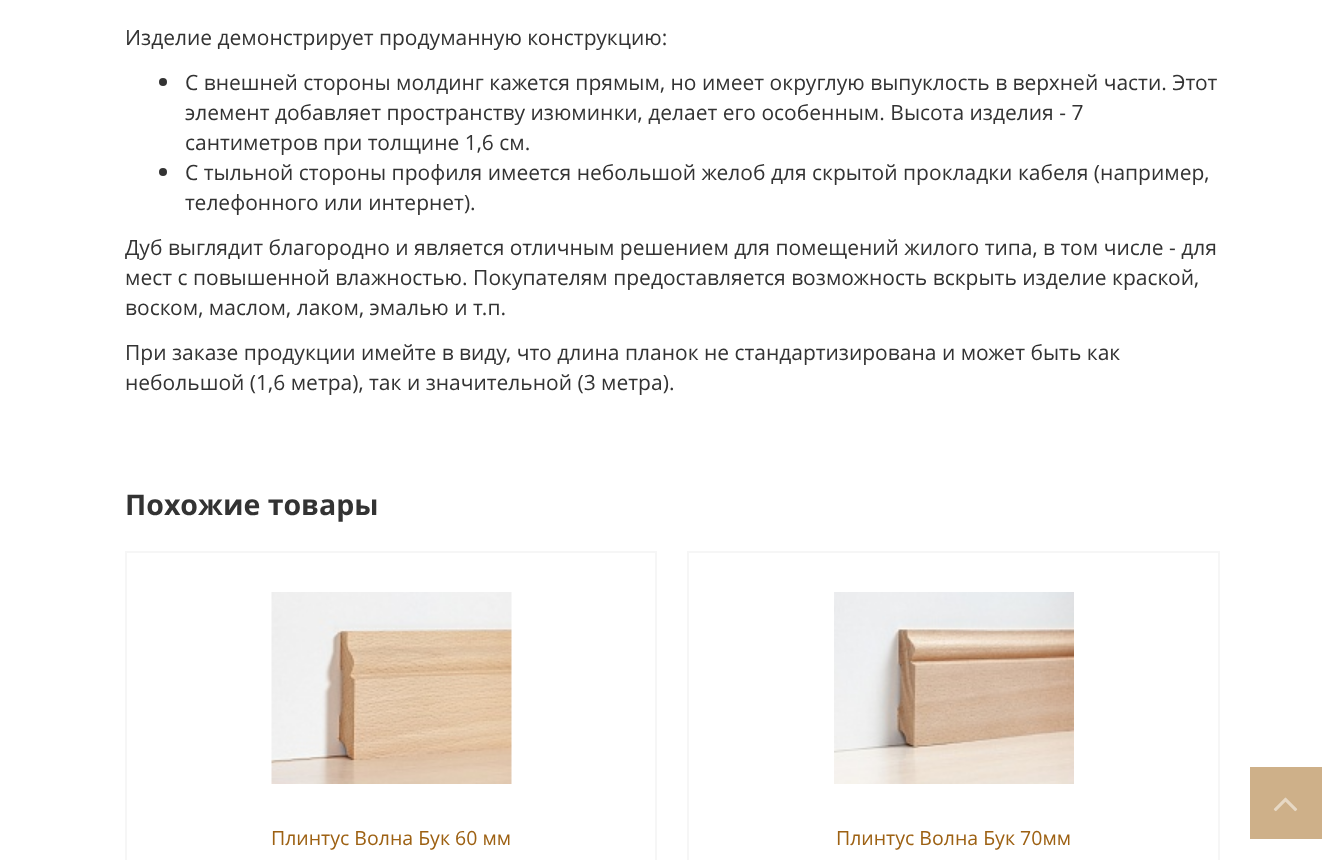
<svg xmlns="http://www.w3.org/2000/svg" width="1344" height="860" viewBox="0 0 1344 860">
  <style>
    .t1 { font: 21px Open Sans; fill: #333; }
    .t2 { font: bold 28.5px Open Sans; fill: #333; }
    .t3 { font: 19.5px Open Sans; fill: #9d6113; }
  </style>
  <rect width="100%" height="100%" fill="#fff"/>
  <text x="125" y="45" class="t1">Изделие демонстрирует продуманную конструкцию:</text>
  <circle cx="163" cy="82" r="4" fill="#333"/>
  <text x="185" y="90" class="t1">С внешней стороны молдинг кажется прямым, но имеет округлую выпуклость в верхней части. Этот</text>
  <text x="185" y="120" class="t1">элемент добавляет пространству изюминки, делает его особенным. Высота изделия - 7</text>
  <text x="185" y="150" class="t1">сантиметров при толщине 1,6 см.</text>
  <circle cx="163" cy="172" r="4" fill="#333"/>
  <text x="185" y="180" class="t1">С тыльной стороны профиля имеется небольшой желоб для скрытой прокладки кабеля (например,</text>
  <text x="185" y="210" class="t1">телефонного или интернет).</text>
  <text x="125" y="255" class="t1">Дуб выглядит благородно и является отличным решением для помещений жилого типа, в том числе - для</text>
  <text x="125" y="285" class="t1">мест с повышенной влажностью. Покупателям предоставляется возможность вскрыть изделие краской,</text>
  <text x="125" y="315" class="t1">воском, маслом, лаком, эмалью и т.п.</text>
  <text x="125" y="360" class="t1">При заказе продукции имейте в виду, что длина планок не стандартизирована и может быть как</text>
  <text x="125" y="390" class="t1">небольшой (1,6 метра), так и значительной (3 метра).</text>
  <text x="125" y="515" class="t2">Похожие товары</text>
  <rect x="126" y="552" width="530" height="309" fill="none" stroke="#f6f6f6" stroke-width="2"/>
  <image x="271" y="592" width="241" height="192" href="images/1.png"/>
  <text x="271" y="845" class="t3">Плинтус Волна Бук 60 мм</text>
  <rect x="688" y="552" width="531" height="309" fill="none" stroke="#f6f6f6" stroke-width="2"/>
  <image x="834" y="592" width="240" height="192" href="images/2.png"/>
  <text x="836" y="845" class="t3">Плинтус Волна Бук 70мм</text>
  <rect x="1250" y="767" width="72" height="72" fill="#ceb089"/>
  <image x="1273" y="797" width="25" height="15" href="images/3.png"/>
</svg>
